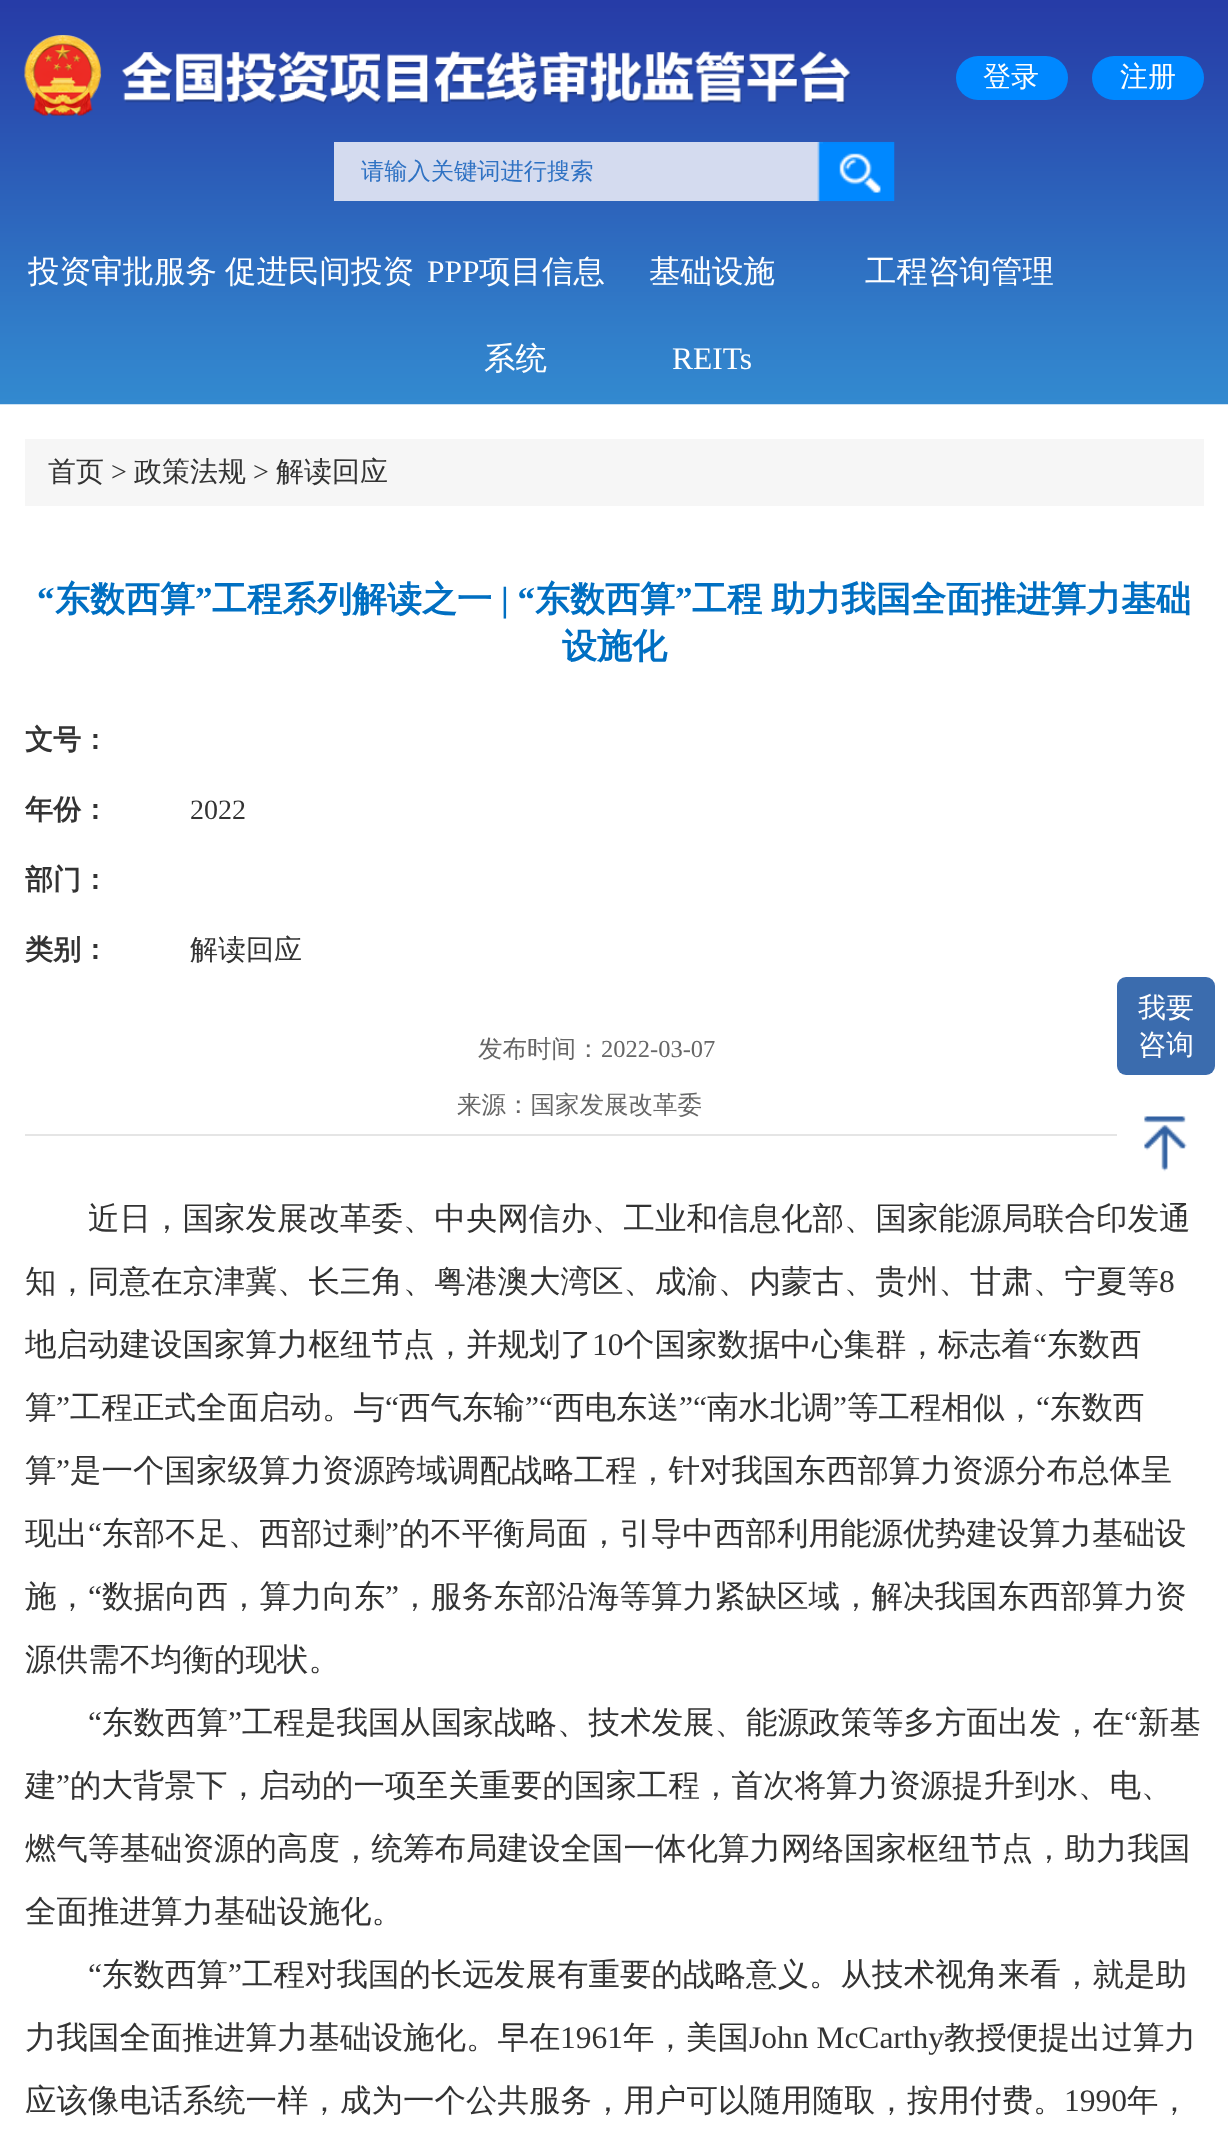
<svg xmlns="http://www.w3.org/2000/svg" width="1228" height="2140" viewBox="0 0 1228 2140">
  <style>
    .t1 { font: 500 28px WenQuanYi Zen Hei; fill: #fff; }
    .t2 { font: 500 23.25px WenQuanYi Zen Hei; fill: #2f72c3; }
    .t3 { font: 500 31.5px WenQuanYi Zen Hei; fill: #fff; }
    .t4 { font: 31.5px Liberation Serif; fill: #fff; }
    .t5 { font: 500 28px WenQuanYi Zen Hei; fill: #333; }
    .t6 { font: 28px Liberation Serif; fill: #333; }
    .t7 { font: bold 35px Liberation Serif; fill: #006fc2; }
    .t8 { font: bold 35px WenQuanYi Zen Hei; fill: #006fc2; }
    .t9 { font: bold 28px WenQuanYi Zen Hei; fill: #333; }
    .t10 { font: 500 24.5px WenQuanYi Zen Hei; fill: #666; }
    .t11 { font: 24.5px Liberation Serif; fill: #666; }
    .t12 { font: 500 31.5px WenQuanYi Zen Hei; fill: #333; }
    .t13 { font: 31.5px Liberation Serif; fill: #333; }
  </style>
  <defs>
    <clipPath id="clip1"><rect x="25" y="1188" width="1179" height="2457"/></clipPath>
  </defs>
  <rect width="100%" height="100%" fill="#fff"/>
  <image x="0" y="0" width="1228" height="405" href="images/1.png"/>
  <image x="24" y="35" width="827" height="81" href="images/2.png"/>
  <rect x="956" y="56" width="112" height="44" rx="22" fill="#08f"/>
  <text x="983" y="86" class="t1">登录</text>
  <rect x="1092" y="56" width="112" height="44" rx="22" fill="#08f"/>
  <text x="1120" y="86" class="t1">注册</text>
  <rect x="334" y="142" width="489" height="59" fill="#d4dbef"/>
  <text x="361" y="179" class="t2">请输入关键词进行搜索</text>
  <image x="817" y="141" width="78" height="61" href="images/3.png"/>
  <text x="28" y="282" class="t3">投资审批服务</text>
  <text x="225" y="282" class="t3">促进民间投资</text>
  <text x="427" y="282" class="t4">PPP</text>
  <text x="479" y="282" class="t3">项目信息</text>
  <text x="484" y="369" class="t3">系统</text>
  <text x="649" y="282" class="t3">基础设施</text>
  <text x="672" y="369" class="t4">REITs</text>
  <text x="865" y="282" class="t3">工程咨询管理</text>
  <rect x="25" y="439" width="1179" height="67" fill="#f6f6f6"/>
  <text x="48" y="481" class="t5">首页</text>
  <text x="111" y="481" class="t6">&gt;</text>
  <text x="134" y="481" class="t5">政策法规</text>
  <text x="253" y="481" class="t6">&gt;</text>
  <text x="276" y="481" class="t5">解读回应</text>
  <text x="37" y="611" class="t7">“</text>
  <text x="55" y="611" class="t8">东数西算</text>
  <text x="195" y="611" class="t7">”</text>
  <text x="212" y="611" class="t8">工程系列解读之一</text>
  <text x="501" y="611" class="t7">| “</text>
  <text x="535" y="611" class="t8">东数西算</text>
  <text x="675" y="611" class="t7">”</text>
  <text x="692" y="611" class="t8">工程</text>
  <text x="771" y="611" class="t8">助力我国全面推进算力基础</text>
  <text x="562" y="658" class="t8">设施化</text>
  <text x="25" y="749" class="t9">文号：</text>
  <text x="25" y="819" class="t9">年份：</text>
  <text x="190" y="819" class="t6">2022</text>
  <text x="25" y="889" class="t9">部门：</text>
  <text x="25" y="959" class="t9">类别：</text>
  <text x="190" y="959" class="t5">解读回应</text>
  <rect x="25" y="1134" width="1092" height="2" fill="#e5e5e5"/>
  <text x="478" y="1057" class="t10">发布时间：</text>
  <text x="601" y="1057" class="t11">2022-03-07</text>
  <text x="457" y="1113" class="t10">来源：国家发展改革委</text>
  <text x="88" y="1229" class="t12">近日，国家发展改革委、中央网信办、工业和信息化部、国家能源局联合印发通</text>
  <text x="25" y="1292" class="t12">知，同意在京津冀、长三角、粤港澳大湾区、成渝、内蒙古、贵州、甘肃、宁夏等</text>
  <text x="1159" y="1292" class="t13">8</text>
  <g clip-path="url(#clip1)">
    <text x="25" y="1355" class="t12">地启动建设国家算力枢纽节点，并规划了</text>
  </g>
  <text x="592" y="1355" class="t13">10</text>
  <text x="623" y="1355" class="t12">个国家数据中心集群，标志着</text>
  <text x="1033" y="1355" class="t13">“</text>
  <text x="1047" y="1355" class="t12">东数西</text>
  <text x="25" y="1418" class="t12">算</text>
  <text x="56" y="1418" class="t13">”</text>
  <text x="70" y="1418" class="t12">工程正式全面启动。与</text>
  <text x="385" y="1418" class="t13">“</text>
  <text x="399" y="1418" class="t12">西气东输</text>
  <text x="525" y="1418" class="t13">”“</text>
  <text x="553" y="1418" class="t12">西电东送</text>
  <text x="679" y="1418" class="t13">”“</text>
  <text x="707" y="1418" class="t12">南水北调</text>
  <text x="833" y="1418" class="t13">”</text>
  <text x="847" y="1418" class="t12">等工程相似，</text>
  <text x="1036" y="1418" class="t13">“</text>
  <text x="1050" y="1418" class="t12">东数西</text>
  <text x="25" y="1481" class="t12">算</text>
  <text x="56" y="1481" class="t13">”</text>
  <text x="70" y="1481" class="t12">是一个国家级算力资源跨域调配战略工程，针对我国东西部算力资源分布总体呈</text>
  <g clip-path="url(#clip1)">
    <text x="25" y="1544" class="t12">现出</text>
  </g>
  <text x="88" y="1544" class="t13">“</text>
  <text x="102" y="1544" class="t12">东部不足、西部过剩</text>
  <text x="385" y="1544" class="t13">”</text>
  <text x="399" y="1544" class="t12">的不平衡局面，引导中西部利用能源优势建设算力基础设</text>
  <text x="25" y="1607" class="t12">施，</text>
  <text x="88" y="1607" class="t13">“</text>
  <text x="102" y="1607" class="t12">数据向西，算力向东</text>
  <text x="385" y="1607" class="t13">”</text>
  <text x="399" y="1607" class="t12">，服务东部沿海等算力紧缺区域，解决我国东西部算力资</text>
  <text x="25" y="1670" class="t12">源供需不均衡的现状。</text>
  <text x="88" y="1733" class="t13">“</text>
  <text x="102" y="1733" class="t12">东数西算</text>
  <text x="228" y="1733" class="t13">”</text>
  <text x="242" y="1733" class="t12">工程是我国从国家战略、技术发展、能源政策等多方面出发，在</text>
  <text x="1124" y="1733" class="t13">“</text>
  <text x="1138" y="1733" class="t12">新基</text>
  <text x="25" y="1796" class="t12">建</text>
  <text x="56" y="1796" class="t13">”</text>
  <text x="70" y="1796" class="t12">的大背景下，启动的一项至关重要的国家工程，首次将算力资源提升到水、电、</text>
  <text x="25" y="1859" class="t12">燃气等基础资源的高度，统筹布局建设全国一体化算力网络国家枢纽节点，助力我国</text>
  <text x="25" y="1922" class="t12">全面推进算力基础设施化。</text>
  <text x="88" y="1985" class="t13">“</text>
  <text x="102" y="1985" class="t12">东数西算</text>
  <text x="228" y="1985" class="t13">”</text>
  <text x="242" y="1985" class="t12">工程对我国的长远发展有重要的战略意义。从技术视角来看，就是助</text>
  <text x="25" y="2048" class="t12">力我国全面推进算力基础设施化。早在</text>
  <text x="560" y="2048" class="t13">1961</text>
  <text x="623" y="2048" class="t12">年，美国</text>
  <text x="749" y="2048" class="t13">John McCarthy</text>
  <text x="944" y="2048" class="t12">教授便提出过算力</text>
  <text x="25" y="2111" class="t12">应该像电话系统一样，成为一个公共服务，用户可以随用随取，按用付费。</text>
  <text x="1064" y="2111" class="t13">1990</text>
  <text x="1127" y="2111" class="t12">年，</text>
  <rect x="1117" y="977" width="98" height="98" rx="9" fill="#3b6cae"/>
  <text x="1138" y="1017" class="t1">我要</text>
  <text x="1138" y="1054" class="t1">咨询</text>
  <image x="1144" y="1116" width="43" height="56" href="images/4.png"/>
</svg>
